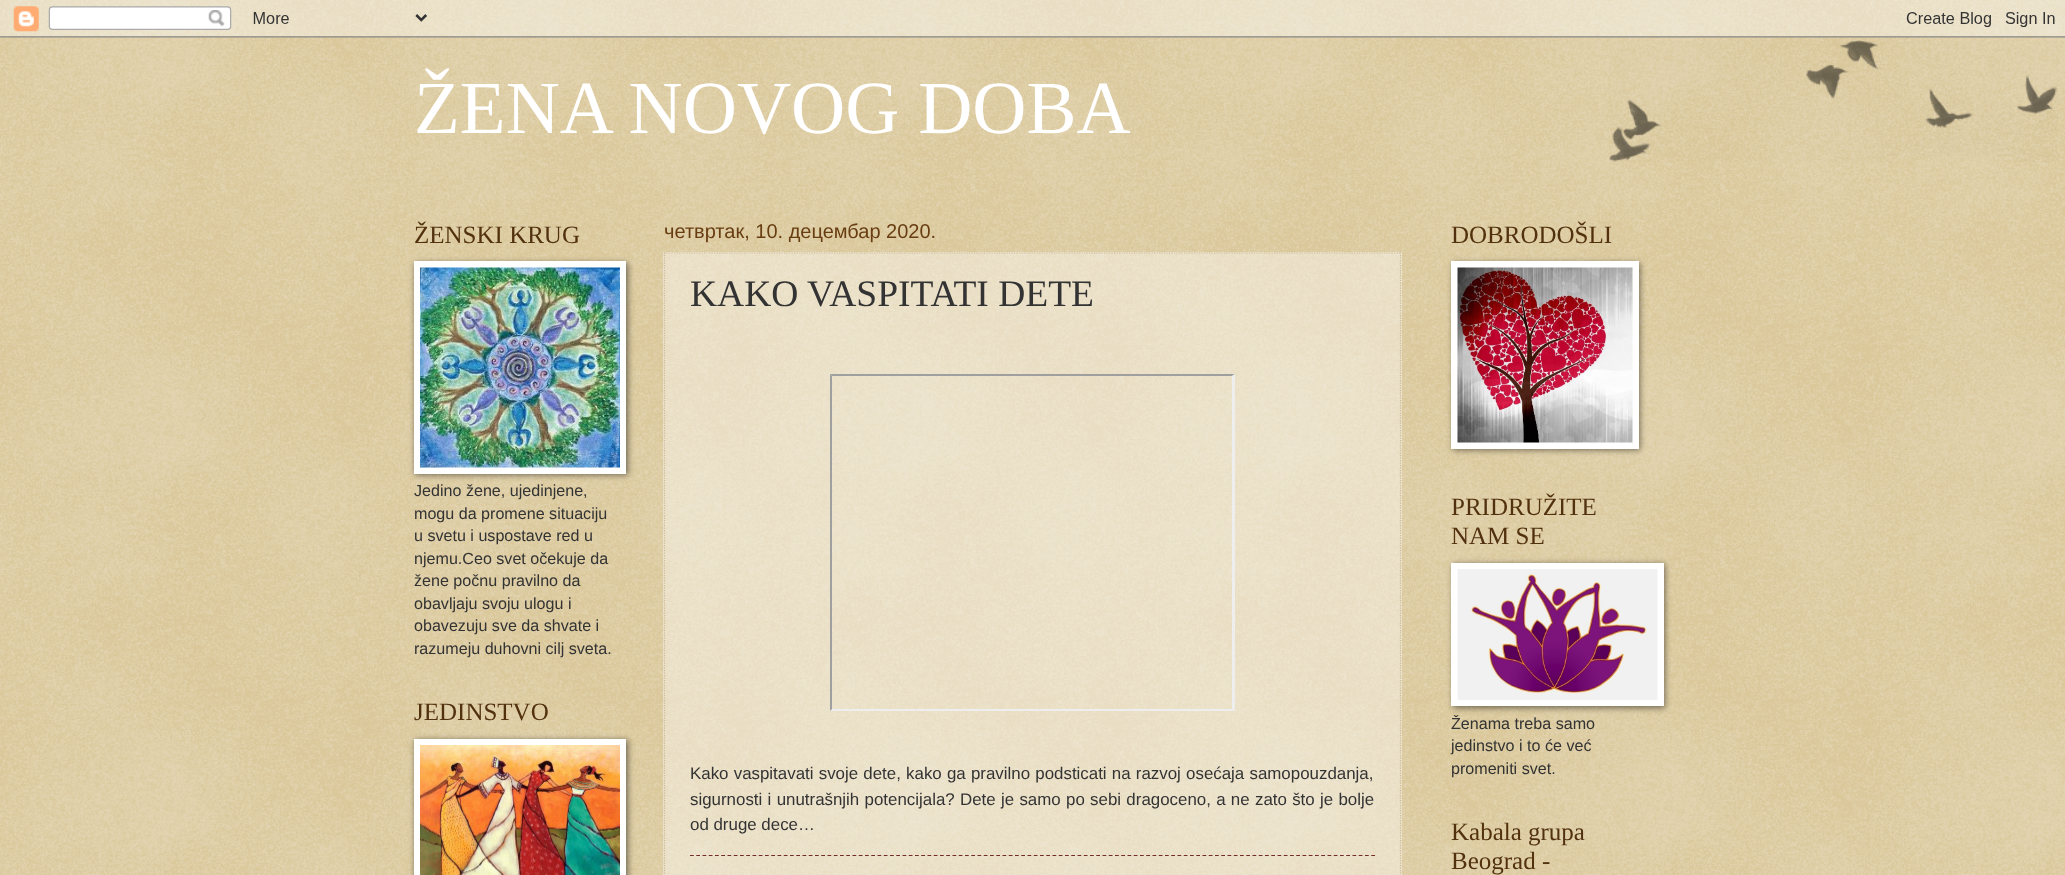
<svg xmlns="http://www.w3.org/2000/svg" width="2065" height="875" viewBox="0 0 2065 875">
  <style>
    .t1 { font: 75px Liberation Serif; fill: #fff; }
    .t2 { font: 25px Liberation Serif; fill: #52310f; }
    .t3 { font: 16.1px Liberation Sans; fill: #333; }
    .t4 { font: 20px Liberation Sans; fill: #683d12; }
    .t5 { font: 37.5px Liberation Serif; fill: #333; }
    .t6 { font: 16.9px Liberation Sans; fill: #333; }
  </style>
  <rect width="100%" height="100%" fill="#c0a154"/>
  <image x="0" y="0" width="2065" height="875" href="images/1.png"/>
  <image x="0" y="0" width="2065" height="38" href="images/2.png"/>
  <text x="414" y="133" class="t1">ŽENA NOVOG DOBA</text>
  <text x="414" y="243" class="t2">ŽENSKI KRUG</text>
  <rect x="415" y="263" width="213" height="212" fill="#00000080" filter="blur(3px)"/>
  <rect x="414" y="261" width="212" height="213" fill="#fff"/>
  <image x="420" y="267" width="200" height="201" href="images/3.png"/>
  <text x="414" y="496" class="t3">Jedino žene, ujedinjene,</text>
  <text x="414" y="519" class="t3">mogu da promene situaciju</text>
  <text x="414" y="541" class="t3">u svetu i uspostave red u</text>
  <text x="414" y="564" class="t3">njemu.Ceo svet očekuje da</text>
  <text x="414" y="586" class="t3">žene počnu pravilno da</text>
  <text x="414" y="609" class="t3">obavljaju svoju ulogu i</text>
  <text x="414" y="631" class="t3">obavezuju sve da shvate i</text>
  <text x="414" y="654" class="t3">razumeju duhovni cilj sveta.</text>
  <text x="414" y="720" class="t2">JEDINSTVO</text>
  <rect x="415" y="740" width="213" height="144" fill="#00000080" filter="blur(3px)"/>
  <rect x="414" y="739" width="212" height="136" fill="#fff"/>
  <image x="420" y="745" width="200" height="130" href="images/4.png"/>
  <text x="664" y="238" class="t4">четвртак, 10. децембар 2020.</text>
  <rect x="663" y="252" width="739" height="623" fill="#ffffff66"/>
  <path d="M664 253H1401" fill="none" stroke="#cb9" stroke-width="1.2" stroke-dasharray="1.25 1.25"/>
  <path d="M1400.5 252.5V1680" fill="none" stroke="#cb9" stroke-width="1.2" stroke-dasharray="1.25 1.25"/>
  <path d="M664.5 252.5V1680" fill="none" stroke="#cb9" stroke-width="1.2" stroke-dasharray="1.25 1.25"/>
  <text x="690" y="306" class="t5">KAKO VASPITATI DETE</text>
  <path d="M830 374H1235L1232 376H832Z" fill="#9f9f9f"/>
  <path d="M1235 374V711L1232 709V376Z" fill="#eee"/>
  <path d="M1235 711H830L832 709H1232Z" fill="#eee"/>
  <path d="M830 711V374L832 376V709Z" fill="#9f9f9f"/>
  <text x="690" y="779" word-spacing="0.5" class="t6">Kako vaspitavati svoje dete, kako ga pravilno podsticati na razvoj osećaja samopouzdanja,</text>
  <text x="690" y="805" word-spacing="0.6" class="t6">sigurnosti i unutrašnjih potencijala? Dete je samo po sebi dragoceno, a ne zato što je bolje</text>
  <text x="690" y="830" class="t6">od druge dece…</text>
  <path d="M690 855.5H1375" fill="none" stroke="#722b2b" stroke-width="1.2" stroke-dasharray="3.75 2.5"/>
  <text x="1451" y="243" class="t2">DOBRODOŠLI</text>
  <rect x="1453" y="263" width="187" height="187" fill="#00000080" filter="blur(3px)"/>
  <rect x="1451" y="261" width="188" height="188" fill="#fff"/>
  <image x="1457" y="267" width="176" height="176" href="images/5.png"/>
  <text x="1451" y="515" class="t2">PRIDRUŽITE</text>
  <text x="1451" y="544" class="t2">NAM SE</text>
  <rect x="1453" y="564" width="212" height="144" fill="#00000080" filter="blur(3px)"/>
  <rect x="1451" y="563" width="213" height="143" fill="#fff"/>
  <image x="1457" y="569" width="201" height="131" href="images/6.png"/>
  <text x="1451" y="729" class="t3">Ženama treba samo</text>
  <text x="1451" y="751" class="t3">jedinstvo i to će već</text>
  <text x="1451" y="774" class="t3">promeniti svet.</text>
  <text x="1451" y="840" class="t2">Kabala grupa</text>
  <text x="1451" y="869" class="t2">Beograd -</text>
  <image x="1609" y="40" width="449" height="122" href="images/7.png"/>
</svg>
